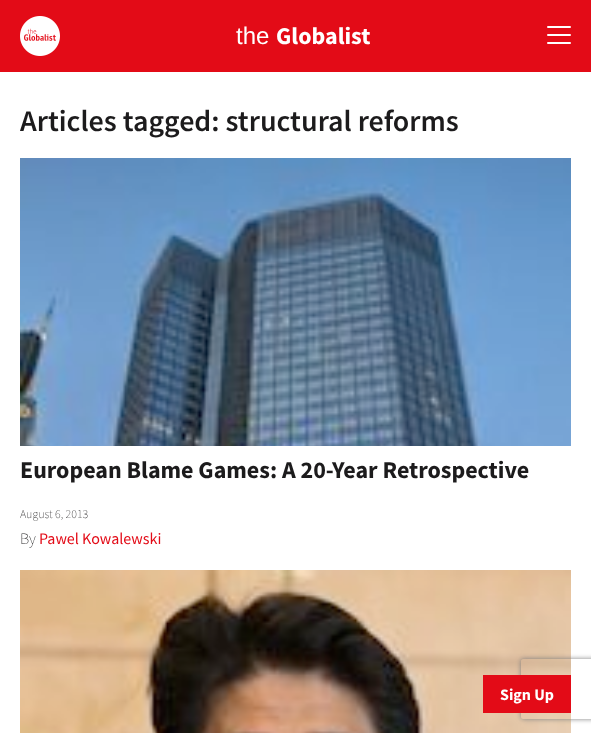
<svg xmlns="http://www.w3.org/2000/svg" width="591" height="733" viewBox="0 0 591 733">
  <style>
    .t1 { font: 24px Liberation Sans; fill: #fff; }
    .t2 { font: bold 24px Source Sans Pro; fill: #fff; }
    .t3 { font: 600 30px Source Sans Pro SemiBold; fill: #1c1b1c; }
    .t4 { font: bold 24px Source Sans Pro; fill: #1c1b1c; }
    .t5 { font: 200 12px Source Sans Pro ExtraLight; fill: #1c1b1c; }
    .t6 { font: 200 16px Source Sans Pro ExtraLight; fill: #1c1b1c; }
    .t7 { font: 16px Source Sans Pro; fill: #e30b17; }
    .t8 { font: bold 16px Source Sans Pro; fill: #fff; }
  </style>
  <defs>
    <clipPath id="clip1"><path d="M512 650H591V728H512ZM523 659H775C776 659 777 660 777 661V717C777 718 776 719 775 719H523C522 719 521 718 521 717V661C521 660 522 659 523 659Z" clip-rule="evenodd"/></clipPath>
  </defs>
  <rect width="100%" height="100%" fill="#fff"/>
  <rect x="0" y="0" width="591" height="72" fill="#e30b17"/>
  <image x="20" y="16" width="40" height="40" href="images/1.png"/>
  <text x="236" y="44" class="t1">the</text>
  <text x="276" y="44" class="t2">Globalist</text>
  <rect x="547" y="34" width="24" height="2" rx="1" fill="#fff"/>
  <rect x="547" y="26" width="24" height="2" rx="1" fill="#fff"/>
  <rect x="547" y="42" width="24" height="2" rx="1" fill="#fff"/>
  <text x="20" y="131" class="t3">Articles tagged: structural reforms</text>
  <image x="20" y="158" width="551" height="288" href="images/2.png"/>
  <text x="20" y="478" class="t4">European Blame Games: A 20-Year Retrospective</text>
  <text x="20" y="518" class="t5">August 6, 2013</text>
  <text x="20" y="544" class="t6">By</text>
  <text x="39" y="544" class="t7">Pawel Kowalewski</text>
  <image x="20" y="570" width="551" height="163" href="images/3.png"/>
  <g clip-path="url(#clip1)">
    <rect x="521" y="659" width="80" height="60" rx="2" fill="#808080" filter="blur(2.5px)"/>
  </g>
  <rect x="483" y="675" width="88" height="38" fill="#e30b17"/>
  <text x="500" y="700" class="t8">Sign Up</text>
</svg>
